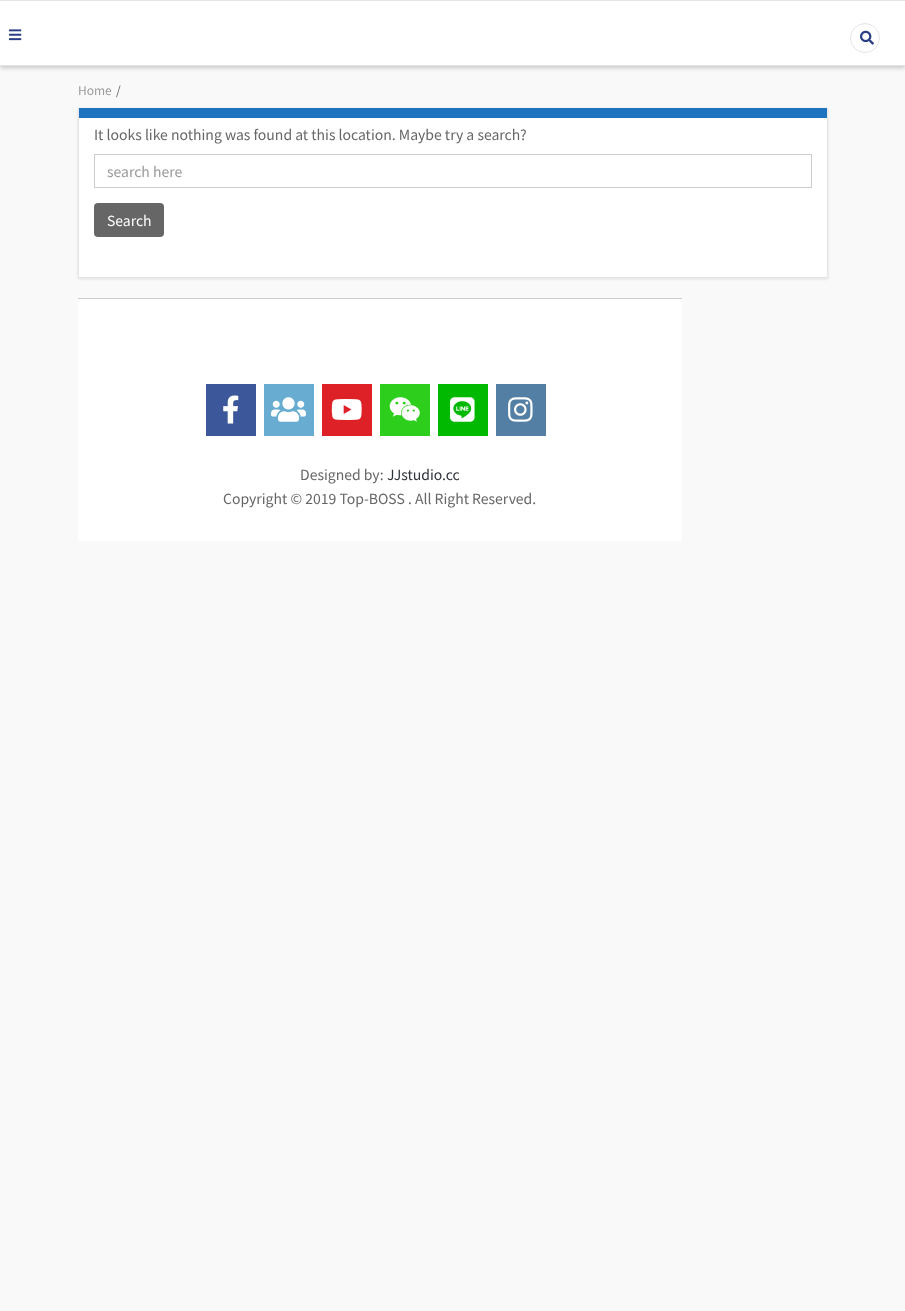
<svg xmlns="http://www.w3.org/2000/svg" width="905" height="1311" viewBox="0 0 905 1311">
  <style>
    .t1 { font: 12px Noto Sans TC; fill: #999; }
    .t2 { font: 12px Noto Sans TC; fill: #666; }
    .t3 { font: 14px Noto Sans TC; fill: #666; }
    .t4 { font: 14px Noto Sans TC; fill: #999; }
    .t5 { font: 14px Noto Sans TC; fill: #fff; }
    .t6 { font: 14px Noto Sans TC; fill: #2d3138; }
  </style>
  <rect width="100%" height="100%" fill="#f9f9f9"/>
  <rect x="0" y="2" width="905" height="66" fill="#00000033" filter="blur(2px)"/>
  <rect x="0" y="1" width="905" height="64" fill="#fff"/>
  <rect x="0" y="0" width="905" height="1" fill="#e5e5e5"/>
  <rect x="0" y="65" width="905" height="1" fill="#e5e5e5"/>
  <image x="9" y="29" width="13" height="12" href="images/1.png"/>
  <circle cx="865" cy="38" r="14.5" fill="none" stroke="#e5e5e5"/>
  <image x="860" y="30" width="14" height="15" href="images/2.png"/>
  <text x="78" y="95" class="t1">Home</text>
  <text x="116" y="95" class="t2">/</text>
  <rect x="78" y="109" width="750" height="170" fill="#0000001a" filter="blur(1.5px)"/>
  <rect x="79" y="118" width="748" height="159" fill="#fff"/>
  <rect x="78.5" y="108.5" width="749" height="169" fill="none" stroke="#e6e6e6"/>
  <rect x="79" y="108" width="748" height="10" fill="#1e73be"/>
  <text x="94" y="140" class="t3">It looks like nothing was found at this location. Maybe try a search?</text>
  <rect x="94.5" y="154.5" width="717" height="33" fill="none" stroke="#ccc"/>
  <text x="107" y="177" class="t4">search here</text>
  <rect x="94" y="203" width="70" height="34" rx="4" fill="#666"/>
  <text x="107" y="226" class="t5">Search</text>
  <rect x="78" y="299" width="604" height="242" fill="#fff"/>
  <rect x="78" y="298" width="604" height="1" fill="#ccc"/>
  <rect x="206" y="384" width="50" height="52" fill="#3c589a"/>
  <image x="223" y="395" width="16" height="29" href="images/3.png"/>
  <rect x="264" y="384" width="50" height="52" fill="#68acd2"/>
  <image x="271" y="397" width="35" height="25" href="images/4.png"/>
  <rect x="322" y="384" width="50" height="52" fill="#de2127"/>
  <image x="331" y="399" width="31" height="21" href="images/5.png"/>
  <rect x="380" y="384" width="50" height="52" fill="#2ece1d"/>
  <image x="389" y="397" width="31" height="25" href="images/6.png"/>
  <rect x="438" y="384" width="50" height="52" fill="#00b900"/>
  <image x="450" y="397" width="25" height="25" href="images/7.png"/>
  <rect x="496" y="384" width="50" height="52" fill="#527fa3"/>
  <image x="508" y="397" width="25" height="25" href="images/8.png"/>
  <text x="300" y="480" class="t3">Designed by:</text>
  <text x="387" y="480" class="t6">JJstudio.cc</text>
  <text x="223" y="504" class="t3">Copyright © 2019 Top-BOSS . All Right Reserved.</text>
</svg>
